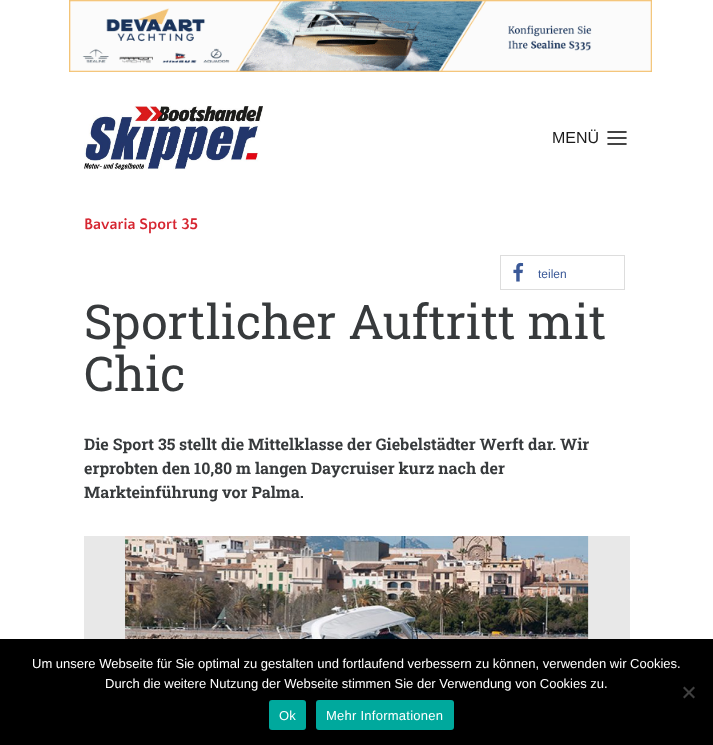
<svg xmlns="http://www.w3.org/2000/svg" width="713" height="745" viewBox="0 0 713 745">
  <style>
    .t1 { font: 16px Liberation Sans; fill: #1a1a1a; }
    .t2 { font: bold 16px Quattrocento Sans; fill: #d62631; }
    .t3 { font: 12px Liberation Sans; fill: #3b5998; }
    .t4 { font: 48px Roboto Slab; fill: #373a3c; }
    .t5 { font: bold 16px Roboto Slab; fill: #373a3c; }
    .t6 { font: 13px Liberation Sans; fill: #fff; }
    .t7 { font: 13px Liberation Sans; letter-spacing: 0.25px; fill: #fff; }
  </style>
  <rect width="100%" height="100%" fill="#fff"/>
  <image x="69" y="0" width="583" height="72" href="images/1.png"/>
  <image x="84" y="106" width="179" height="64" href="images/2.png"/>
  <text x="552" y="143" class="t1">MENÜ</text>
  <image x="607" y="131" width="20" height="14" href="images/3.png"/>
  <text x="84" y="229" class="t2">Bavaria Sport 35</text>
  <rect x="500.5" y="255.5" width="124" height="34" fill="none" stroke="#ddd"/>
  <image x="513" y="262" width="11" height="20" href="images/4.png"/>
  <text x="538" y="278" class="t3">teilen</text>
  <text x="84" y="339" class="t4">Sportlicher Auftritt mit</text>
  <text x="84" y="391" class="t4">Chic</text>
  <text x="84" y="450" class="t5">Die Sport 35 stellt die Mittelklasse der Giebelstädter Werft dar. Wir</text>
  <text x="84" y="474" class="t5">erprobten den 10,80 m langen Daycruiser kurz nach der</text>
  <text x="84" y="498" class="t5">Markteinführung vor Palma.</text>
  <rect x="84" y="536" width="546" height="103" fill="#e8e8e8"/>
  <image x="125" y="536" width="464" height="103" href="images/5.png"/>
  <rect x="0" y="639" width="713" height="106" fill="#000"/>
  <text x="32" y="668" class="t6">Um unsere Webseite für Sie optimal zu gestalten und fortlaufend verbessern zu können, verwenden wir Cookies.</text>
  <text x="105" y="688" class="t6">Durch die weitere Nutzung der Webseite stimmen Sie der Verwendung von Cookies zu.</text>
  <path d="M693.5 686.5L695 688L684.5 698.5L683 697Z" fill="#404040"/>
  <path d="M683 688L684.5 686.5L695 697L693.5 698.5Z" fill="#404040"/>
  <rect x="269" y="700" width="37" height="30" rx="3" fill="#00a99d"/>
  <text x="279" y="720" class="t7">Ok</text>
  <rect x="316" y="700" width="138" height="30" rx="3" fill="#00a99d"/>
  <text x="326" y="720" class="t7">Mehr Informationen</text>
</svg>
